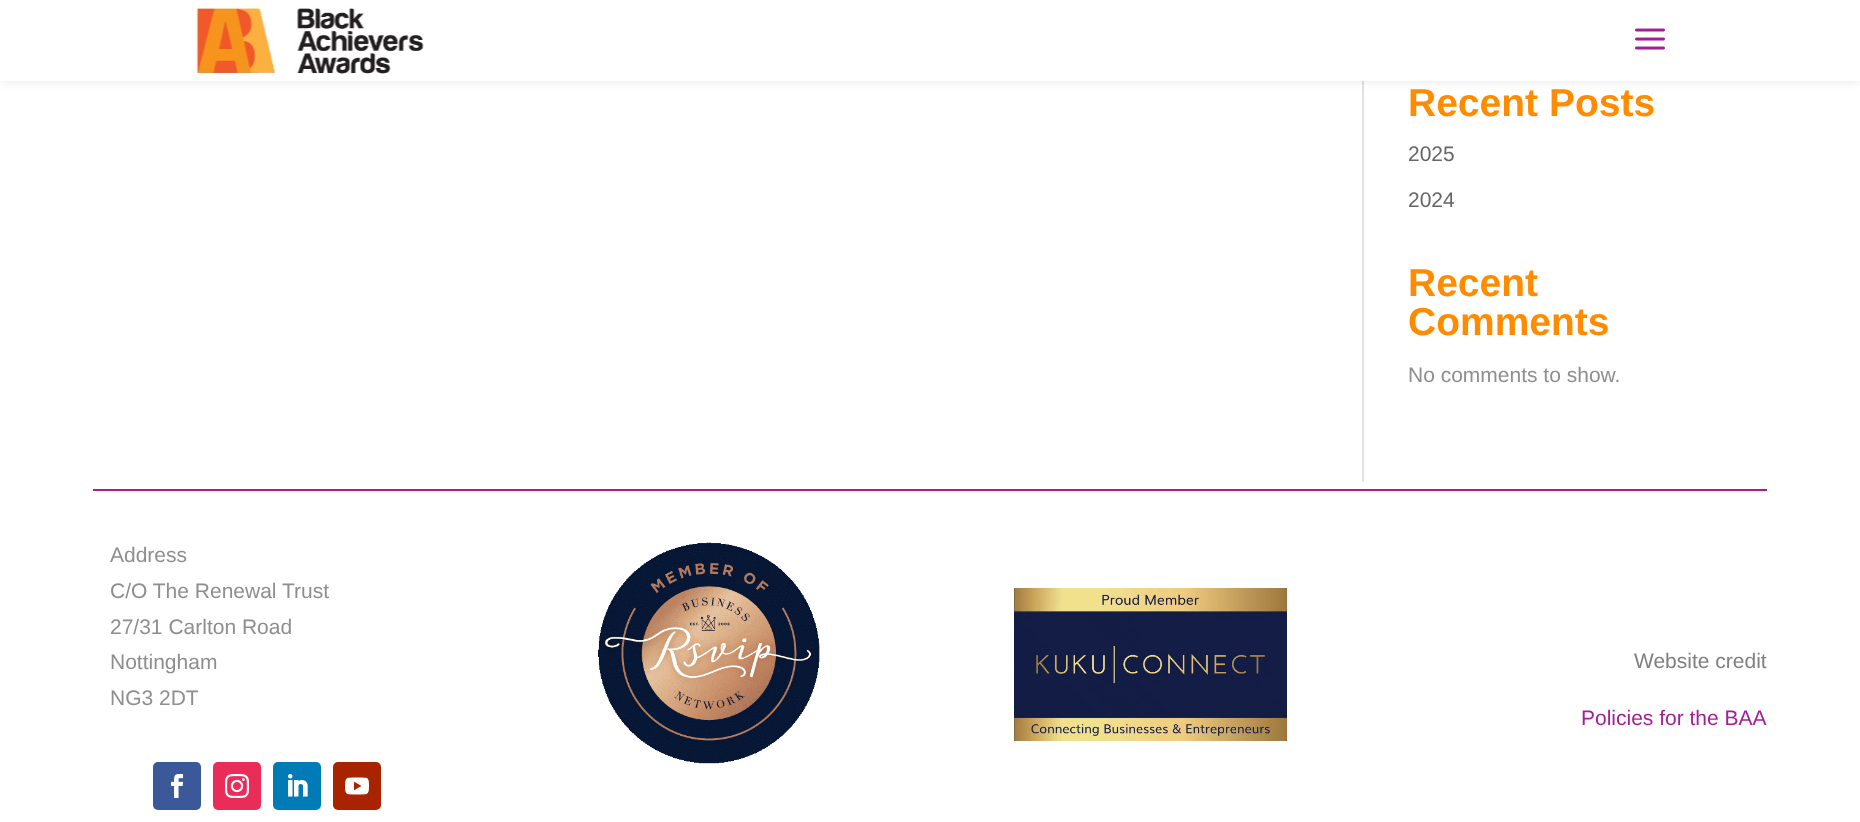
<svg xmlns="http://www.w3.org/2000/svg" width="1860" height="822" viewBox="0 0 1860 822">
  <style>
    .t1 { font: bold 39px Liberation Sans; fill: #ff8c00; }
    .t2 { font: 21px Liberation Sans; fill: #666; }
    .t3 { font: 21px Liberation Sans; fill: #8e8e8e; }
    .t4 { font: 21px Liberation Sans; fill: #808080; }
    .t5 { font: 21px Liberation Sans; fill: #a31f95; }
  </style>
  <rect width="100%" height="100%" fill="#fff"/>
  <rect x="1362" y="81" width="2" height="401" fill="#e2e2e2"/>
  <rect x="0" y="0" width="1860" height="81" fill="#0000001a" filter="blur(5px)"/>
  <rect x="0" y="0" width="1860" height="81" fill="#fff"/>
  <image x="196" y="6" width="228" height="70" href="images/1.png"/>
  <image x="1635" y="28" width="30" height="22" href="images/2.png"/>
  <text x="1408" y="116" class="t1">Recent Posts</text>
  <text x="1408" y="161" class="t2">2025</text>
  <text x="1408" y="207" class="t2">2024</text>
  <text x="1408" y="296" class="t1">Recent</text>
  <text x="1408" y="335" class="t1">Comments</text>
  <text x="1408" y="382" class="t3">No comments to show.</text>
  <rect x="93" y="489" width="1674" height="2" fill="#a31f95"/>
  <text x="110" y="562" class="t3">Address</text>
  <text x="110" y="598" class="t3">C/O The Renewal Trust</text>
  <text x="110" y="634" class="t3">27/31 Carlton Road</text>
  <text x="110" y="669" class="t3">Nottingham</text>
  <text x="110" y="705" class="t3">NG3 2DT</text>
  <rect x="153" y="762" width="48" height="48" rx="5" fill="#3b5998"/>
  <image x="171" y="774" width="13" height="24" href="images/3.png"/>
  <rect x="213" y="762" width="48" height="48" rx="5" fill="#ea2c59"/>
  <image x="225" y="774" width="24" height="24" href="images/4.png"/>
  <rect x="273" y="762" width="48" height="48" rx="5" fill="#007bb6"/>
  <image x="288" y="774" width="20" height="23" href="images/5.png"/>
  <rect x="333" y="762" width="48" height="48" rx="5" fill="#a82400"/>
  <image x="345" y="777" width="24" height="18" href="images/6.png"/>
  <image x="598" y="542" width="222" height="222" href="images/7.png"/>
  <image x="1014" y="588" width="273" height="153" href="images/8.png"/>
  <text x="1634" y="668" class="t4">Website credit</text>
  <text x="1581" y="725" class="t5">Policies for the BAA</text>
</svg>
